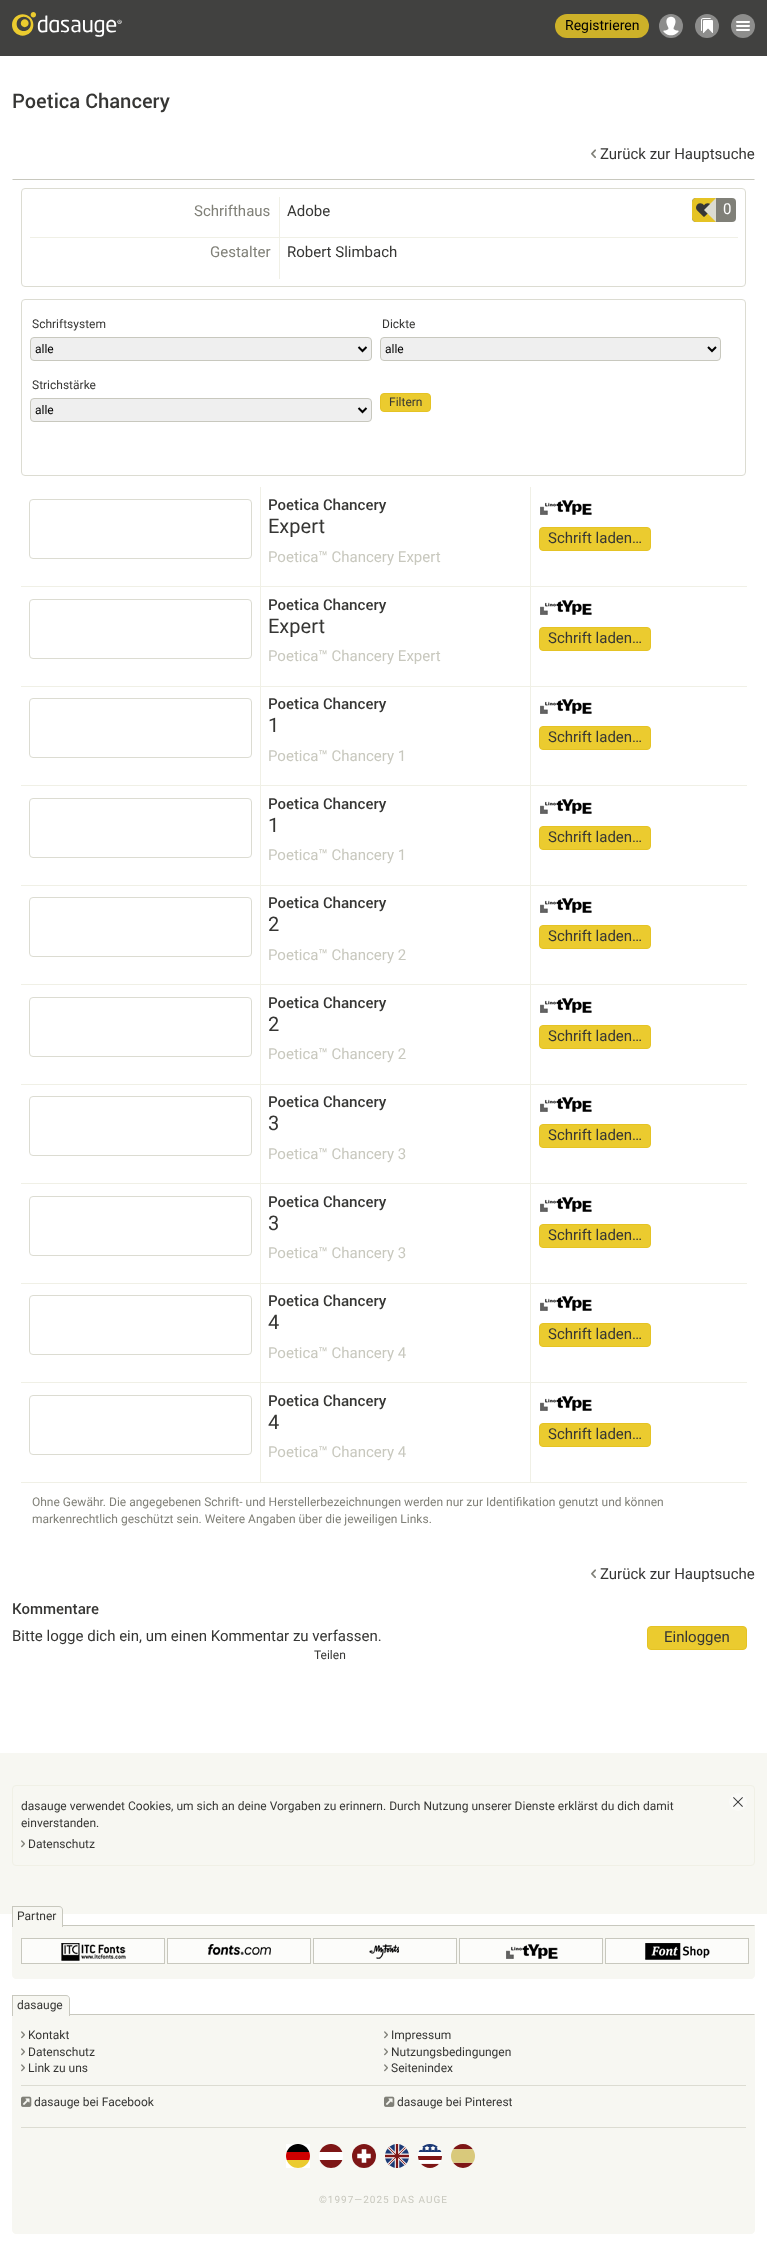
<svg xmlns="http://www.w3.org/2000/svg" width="767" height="2258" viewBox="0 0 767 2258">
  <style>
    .t1 { font: 14px Roboto; fill: #000; }
    .t2 { font: 500 20px Roboto; fill: #363634; }
    .t3 { font: 15px Roboto; fill: #363634; }
    .t4 { font: 15px Roboto; fill: #808078; }
    .t5 { font: 15px Roboto; fill: #fff; }
    .t6 { font: 12px Roboto; fill: #363634; }
    .t7 { font: 12px Roboto; fill: #000; }
    .t8 { font: 500 15px Roboto; fill: #363634; }
    .t9 { font: 20px Roboto; fill: #363634; }
    .t10 { font: 15px Roboto; fill: #c8c8be; }
    .t11 { font: 12px Roboto; fill: #808078; }
    .t12 { font: 10px Roboto; letter-spacing: 1px; fill: #c8c8be; }
  </style>
  <rect width="100%" height="100%" fill="#fff"/>
  <rect x="0" y="0" width="767" height="56" fill="#414140"/>
  <image x="12" y="12" width="110" height="25" href="images/1.png"/>
  <rect x="555" y="14" width="94" height="24" rx="12" fill="#cdb129"/>
  <text x="565" y="30" class="t1">Registrieren</text>
  <image x="659" y="14" width="24" height="24" href="images/2.png"/>
  <image x="695" y="14" width="24" height="24" href="images/3.png"/>
  <image x="731" y="14" width="24" height="24" href="images/4.png"/>
  <text x="12" y="108" class="t2">Poetica Chancery</text>
  <image x="591" y="149" width="5" height="9" href="images/5.png"/>
  <text x="600" y="159" class="t3">Zurück zur Hauptsuche</text>
  <path d="M12 179L13 180H754L755 179Z" fill="#c8c8be"/>
  <rect x="21.5" y="188.5" width="724" height="98" rx="3.5" fill="none" stroke="#dcdcd2"/>
  <text x="194" y="216" class="t4">Schrifthaus</text>
  <rect x="279" y="237" width="459" height="1" fill="#f0f0e6"/>
  <rect x="279" y="237" width="1" height="42" fill="#f0f0e6"/>
  <rect x="30" y="237" width="250" height="1" fill="#f0f0e6"/>
  <rect x="279" y="197" width="1" height="41" fill="#f0f0e6"/>
  <text x="287" y="216" class="t3">Adobe</text>
  <text x="210" y="257" class="t4">Gestalter</text>
  <text x="287" y="257" class="t3">Robert Slimbach</text>
  <rect x="692" y="198" width="44" height="24" rx="4" fill="#808078"/>
  <path d="M696 198H716V222H696C694 222 692 220 692 218V202C692 200 694 198 696 198Z" fill="#e5c324"/>
  <image x="696" y="203" width="14" height="14" href="images/6.png"/>
  <path d="M716 198L704 210L716 222Z" fill="#dcdcd2"/>
  <text x="723" y="214" class="t5">0</text>
  <rect x="21.5" y="299.5" width="724" height="176" rx="3.5" fill="none" stroke="#dcdcd2"/>
  <text x="32" y="328" class="t6">Schriftsystem</text>
  <rect x="30.5" y="337.5" width="341" height="23" rx="3.5" fill="#efefef" stroke="#c8c8be"/>
  <path d="M358.5 347L362.5 351L366.5 347" fill="none" stroke="#000" stroke-width="2"/>
  <text x="35" y="353" class="t7">alle</text>
  <text x="382" y="328" class="t6">Dickte</text>
  <rect x="380.5" y="337.5" width="340" height="23" rx="3.5" fill="#efefef" stroke="#c8c8be"/>
  <path d="M708 347L712 351L716 347" fill="none" stroke="#000" stroke-width="2"/>
  <text x="385" y="353" class="t7">alle</text>
  <text x="32" y="389" class="t6">Strichstärke</text>
  <rect x="30.5" y="398.5" width="341" height="23" rx="3.5" fill="#efefef" stroke="#c8c8be"/>
  <path d="M358.5 408L362.5 412L366.5 408" fill="none" stroke="#000" stroke-width="2"/>
  <text x="35" y="414" class="t7">alle</text>
  <rect x="380.5" y="393.5" width="50" height="18" rx="3.5" fill="#ebcb2f" stroke="#e5c324"/>
  <text x="389" y="406" class="t6">Filtern</text>
  <rect x="29.5" y="499.5" width="222" height="59" rx="3.5" fill="none" stroke="#dcdcd2"/>
  <rect x="530" y="586" width="217" height="1" fill="#f0f0e6"/>
  <rect x="530" y="686" width="217" height="1" fill="#f0f0e6"/>
  <rect x="530" y="785" width="217" height="1" fill="#f0f0e6"/>
  <rect x="530" y="885" width="217" height="1" fill="#f0f0e6"/>
  <rect x="530" y="984" width="217" height="1" fill="#f0f0e6"/>
  <rect x="530" y="1084" width="217" height="1" fill="#f0f0e6"/>
  <rect x="530" y="1183" width="217" height="1" fill="#f0f0e6"/>
  <rect x="530" y="1283" width="217" height="1" fill="#f0f0e6"/>
  <rect x="530" y="1382" width="217" height="1" fill="#f0f0e6"/>
  <rect x="21" y="1482" width="726" height="1" fill="#f0f0e6"/>
  <rect x="530" y="1382" width="1" height="101" fill="#f0f0e6"/>
  <rect x="260" y="1382" width="271" height="1" fill="#f0f0e6"/>
  <rect x="530" y="1283" width="1" height="100" fill="#f0f0e6"/>
  <rect x="260" y="1283" width="271" height="1" fill="#f0f0e6"/>
  <rect x="530" y="1183" width="1" height="101" fill="#f0f0e6"/>
  <rect x="260" y="1183" width="271" height="1" fill="#f0f0e6"/>
  <rect x="530" y="1084" width="1" height="100" fill="#f0f0e6"/>
  <rect x="260" y="1084" width="271" height="1" fill="#f0f0e6"/>
  <rect x="530" y="984" width="1" height="101" fill="#f0f0e6"/>
  <rect x="260" y="984" width="271" height="1" fill="#f0f0e6"/>
  <rect x="530" y="885" width="1" height="100" fill="#f0f0e6"/>
  <rect x="260" y="885" width="271" height="1" fill="#f0f0e6"/>
  <rect x="530" y="785" width="1" height="101" fill="#f0f0e6"/>
  <rect x="260" y="785" width="271" height="1" fill="#f0f0e6"/>
  <rect x="530" y="686" width="1" height="100" fill="#f0f0e6"/>
  <rect x="260" y="686" width="271" height="1" fill="#f0f0e6"/>
  <rect x="530" y="586" width="1" height="101" fill="#f0f0e6"/>
  <rect x="260" y="586" width="271" height="1" fill="#f0f0e6"/>
  <rect x="260" y="1382" width="1" height="101" fill="#f0f0e6"/>
  <rect x="21" y="1382" width="240" height="1" fill="#f0f0e6"/>
  <rect x="260" y="1283" width="1" height="100" fill="#f0f0e6"/>
  <rect x="21" y="1283" width="240" height="1" fill="#f0f0e6"/>
  <rect x="260" y="1183" width="1" height="101" fill="#f0f0e6"/>
  <rect x="21" y="1183" width="240" height="1" fill="#f0f0e6"/>
  <rect x="260" y="1084" width="1" height="100" fill="#f0f0e6"/>
  <rect x="21" y="1084" width="240" height="1" fill="#f0f0e6"/>
  <rect x="260" y="984" width="1" height="101" fill="#f0f0e6"/>
  <rect x="21" y="984" width="240" height="1" fill="#f0f0e6"/>
  <rect x="260" y="885" width="1" height="100" fill="#f0f0e6"/>
  <rect x="21" y="885" width="240" height="1" fill="#f0f0e6"/>
  <rect x="260" y="785" width="1" height="101" fill="#f0f0e6"/>
  <rect x="21" y="785" width="240" height="1" fill="#f0f0e6"/>
  <rect x="260" y="686" width="1" height="100" fill="#f0f0e6"/>
  <rect x="21" y="686" width="240" height="1" fill="#f0f0e6"/>
  <rect x="260" y="586" width="1" height="101" fill="#f0f0e6"/>
  <rect x="21" y="586" width="240" height="1" fill="#f0f0e6"/>
  <rect x="260" y="487" width="1" height="100" fill="#f0f0e6"/>
  <text x="268" y="510" class="t8">Poetica Chancery</text>
  <text x="268" y="533" class="t9">Expert</text>
  <text x="268" y="562" class="t10">Poetica™ Chancery Expert</text>
  <rect x="530" y="487" width="1" height="100" fill="#f0f0e6"/>
  <image x="540" y="500" width="52" height="15" href="images/7.png"/>
  <rect x="539.5" y="527.5" width="111" height="23" rx="3.5" fill="#ebcb2f" stroke="#e5c324"/>
  <text x="548" y="543" class="t3">Schrift laden…</text>
  <rect x="29.5" y="599.5" width="222" height="59" rx="3.5" fill="none" stroke="#dcdcd2"/>
  <text x="268" y="610" class="t8">Poetica Chancery</text>
  <text x="268" y="633" class="t9">Expert</text>
  <text x="268" y="661" class="t10">Poetica™ Chancery Expert</text>
  <image x="540" y="600" width="52" height="15" href="images/7.png"/>
  <rect x="539.5" y="627.5" width="111" height="23" rx="3.5" fill="#ebcb2f" stroke="#e5c324"/>
  <text x="548" y="643" class="t3">Schrift laden…</text>
  <rect x="29.5" y="698.5" width="222" height="59" rx="3.5" fill="none" stroke="#dcdcd2"/>
  <text x="268" y="709" class="t8">Poetica Chancery</text>
  <text x="268" y="732" class="t9">1</text>
  <text x="268" y="761" class="t10">Poetica™ Chancery 1</text>
  <image x="540" y="699" width="52" height="15" href="images/7.png"/>
  <rect x="539.5" y="726.5" width="111" height="23" rx="3.5" fill="#ebcb2f" stroke="#e5c324"/>
  <text x="548" y="742" class="t3">Schrift laden…</text>
  <rect x="29.5" y="798.5" width="222" height="59" rx="3.5" fill="none" stroke="#dcdcd2"/>
  <text x="268" y="809" class="t8">Poetica Chancery</text>
  <text x="268" y="832" class="t9">1</text>
  <text x="268" y="860" class="t10">Poetica™ Chancery 1</text>
  <image x="540" y="799" width="52" height="15" href="images/7.png"/>
  <rect x="539.5" y="826.5" width="111" height="23" rx="3.5" fill="#ebcb2f" stroke="#e5c324"/>
  <text x="548" y="842" class="t3">Schrift laden…</text>
  <rect x="29.5" y="897.5" width="222" height="59" rx="3.5" fill="none" stroke="#dcdcd2"/>
  <text x="268" y="908" class="t8">Poetica Chancery</text>
  <text x="268" y="931" class="t9">2</text>
  <text x="268" y="960" class="t10">Poetica™ Chancery 2</text>
  <image x="540" y="898" width="52" height="15" href="images/7.png"/>
  <rect x="539.5" y="925.5" width="111" height="23" rx="3.5" fill="#ebcb2f" stroke="#e5c324"/>
  <text x="548" y="941" class="t3">Schrift laden…</text>
  <rect x="29.5" y="997.5" width="222" height="59" rx="3.5" fill="none" stroke="#dcdcd2"/>
  <text x="268" y="1008" class="t8">Poetica Chancery</text>
  <text x="268" y="1031" class="t9">2</text>
  <text x="268" y="1059" class="t10">Poetica™ Chancery 2</text>
  <image x="540" y="998" width="52" height="15" href="images/7.png"/>
  <rect x="539.5" y="1025.5" width="111" height="23" rx="3.5" fill="#ebcb2f" stroke="#e5c324"/>
  <text x="548" y="1041" class="t3">Schrift laden…</text>
  <rect x="29.5" y="1096.5" width="222" height="59" rx="3.5" fill="none" stroke="#dcdcd2"/>
  <text x="268" y="1107" class="t8">Poetica Chancery</text>
  <text x="268" y="1130" class="t9">3</text>
  <text x="268" y="1159" class="t10">Poetica™ Chancery 3</text>
  <image x="540" y="1097" width="52" height="15" href="images/7.png"/>
  <rect x="539.5" y="1124.5" width="111" height="23" rx="3.5" fill="#ebcb2f" stroke="#e5c324"/>
  <text x="548" y="1140" class="t3">Schrift laden…</text>
  <rect x="29.5" y="1196.5" width="222" height="59" rx="3.5" fill="none" stroke="#dcdcd2"/>
  <text x="268" y="1207" class="t8">Poetica Chancery</text>
  <text x="268" y="1230" class="t9">3</text>
  <text x="268" y="1258" class="t10">Poetica™ Chancery 3</text>
  <image x="540" y="1197" width="52" height="15" href="images/7.png"/>
  <rect x="539.5" y="1224.5" width="111" height="23" rx="3.5" fill="#ebcb2f" stroke="#e5c324"/>
  <text x="548" y="1240" class="t3">Schrift laden…</text>
  <rect x="29.5" y="1295.5" width="222" height="59" rx="3.5" fill="none" stroke="#dcdcd2"/>
  <text x="268" y="1306" class="t8">Poetica Chancery</text>
  <text x="268" y="1329" class="t9">4</text>
  <text x="268" y="1358" class="t10">Poetica™ Chancery 4</text>
  <image x="540" y="1296" width="52" height="15" href="images/7.png"/>
  <rect x="539.5" y="1323.5" width="111" height="23" rx="3.5" fill="#ebcb2f" stroke="#e5c324"/>
  <text x="548" y="1339" class="t3">Schrift laden…</text>
  <rect x="29.5" y="1395.5" width="222" height="59" rx="3.5" fill="none" stroke="#dcdcd2"/>
  <text x="268" y="1406" class="t8">Poetica Chancery</text>
  <text x="268" y="1429" class="t9">4</text>
  <text x="268" y="1457" class="t10">Poetica™ Chancery 4</text>
  <image x="540" y="1396" width="52" height="15" href="images/7.png"/>
  <rect x="539.5" y="1423.5" width="111" height="23" rx="3.5" fill="#ebcb2f" stroke="#e5c324"/>
  <text x="548" y="1439" class="t3">Schrift laden…</text>
  <text x="32" y="1506" class="t11">Ohne Gewähr. Die angegebenen Schrift- und Herstellerbezeichnungen werden nur zur Identifikation genutzt und können</text>
  <text x="32" y="1523" class="t11">markenrechtlich geschützt sein. Weitere Angaben über die jeweiligen Links.</text>
  <image x="591" y="1569" width="5" height="9" href="images/5.png"/>
  <text x="600" y="1579" class="t3">Zurück zur Hauptsuche</text>
  <text x="12" y="1614" class="t8">Kommentare</text>
  <text x="12" y="1641" class="t3">Bitte logge dich ein, um einen Kommentar zu verfassen.</text>
  <rect x="647.5" y="1626.5" width="99" height="23" rx="3.5" fill="#ebcb2f" stroke="#e5c324"/>
  <text x="664" y="1642" class="t3">Einloggen</text>
  <text x="314" y="1659" class="t6">Teilen</text>
  <rect x="0" y="1753" width="767" height="161" fill="#f7f7f2"/>
  <rect x="12.5" y="1785.5" width="742" height="80" rx="3.5" fill="none" stroke="#f0f0e6"/>
  <text x="21" y="1810" class="t6">dasauge verwendet Cookies, um sich an deine Vorgaben zu erinnern. Durch Nutzung unserer Dienste erklärst du dich damit</text>
  <text x="21" y="1827" class="t6">einverstanden.</text>
  <image x="729" y="1793" width="18" height="18" href="images/8.png"/>
  <image x="21" y="1840" width="4" height="8" href="images/9.png"/>
  <text x="28" y="1848" class="t6">Datenschutz</text>
  <path d="M12 1925H755V1975C755 1977 753 1979 751 1979H16C14 1979 12 1977 12 1975Z" fill="#f7f7f2"/>
  <path d="M12 1925L13 1926H754L755 1925Z" fill="#c8c8be"/>
  <path d="M13 1907H59C60.5 1907 62 1908.5 62 1910V1927H13Z" fill="#f7f7f2"/>
  <path d="M12 1906H59C61 1906 63 1908 63 1910V1927H12ZM13 1907H59C61 1907 62 1908 62 1910V1927H13Z" fill="#c8c8be" fill-rule="evenodd"/>
  <text x="17" y="1920" class="t6">Partner</text>
  <rect x="21.5" y="1938.5" width="143" height="25" fill="none" stroke="#c8c8be"/>
  <rect x="22" y="1939" width="142" height="24" fill="#fcfcfa"/>
  <image x="61" y="1943" width="65" height="18" href="images/10.png"/>
  <rect x="167.5" y="1938.5" width="143" height="25" fill="none" stroke="#c8c8be"/>
  <rect x="168" y="1939" width="142" height="24" fill="#fcfcfa"/>
  <image x="208" y="1944" width="63" height="11" href="images/11.png"/>
  <rect x="313.5" y="1938.5" width="143" height="25" fill="none" stroke="#c8c8be"/>
  <rect x="314" y="1939" width="142" height="24" fill="#fcfcfa"/>
  <image x="369" y="1944" width="30" height="15" href="images/12.png"/>
  <rect x="459.5" y="1938.5" width="143" height="25" fill="none" stroke="#c8c8be"/>
  <rect x="460" y="1939" width="142" height="24" fill="#fcfcfa"/>
  <image x="506" y="1944" width="52" height="15" href="images/13.png"/>
  <rect x="605.5" y="1938.5" width="143" height="25" fill="none" stroke="#c8c8be"/>
  <rect x="606" y="1939" width="142" height="24" fill="#fcfcfa"/>
  <image x="645" y="1943" width="65" height="17" href="images/14.png"/>
  <path d="M12 2014H755V2230C755 2232 753 2234 751 2234H16C14 2234 12 2232 12 2230Z" fill="#f7f7f2"/>
  <path d="M12 2014L13 2015H754L755 2014Z" fill="#c8c8be"/>
  <path d="M13 1996H66C67.5 1996 69 1997.5 69 1999V2016H13Z" fill="#f7f7f2"/>
  <path d="M12 1995H66C68 1995 70 1997 70 1999V2016H12ZM13 1996H66C68 1996 69 1997 69 1999V2016H13Z" fill="#c8c8be" fill-rule="evenodd"/>
  <text x="17" y="2009" class="t6">dasauge</text>
  <image x="21" y="2031" width="4" height="8" href="images/9.png"/>
  <text x="28" y="2039" class="t6">Kontakt</text>
  <image x="384" y="2031" width="4" height="8" href="images/9.png"/>
  <text x="391" y="2039" class="t6">Impressum</text>
  <image x="21" y="2048" width="4" height="8" href="images/9.png"/>
  <text x="28" y="2056" class="t6">Datenschutz</text>
  <image x="384" y="2048" width="4" height="8" href="images/9.png"/>
  <text x="391" y="2056" class="t6">Nutzungsbedingungen</text>
  <image x="21" y="2064" width="4" height="8" href="images/9.png"/>
  <text x="28" y="2072" class="t6">Link zu uns</text>
  <image x="384" y="2064" width="4" height="8" href="images/9.png"/>
  <text x="391" y="2072" class="t6">Seitenindex</text>
  <rect x="21" y="2085" width="725" height="1" fill="#dcdcd2"/>
  <image x="21" y="2096" width="11" height="11" href="images/15.png"/>
  <text x="34" y="2106" class="t6">dasauge bei Facebook</text>
  <image x="384" y="2096" width="11" height="11" href="images/15.png"/>
  <text x="397" y="2106" class="t6">dasauge bei Pinterest</text>
  <rect x="21" y="2127" width="725" height="1" fill="#dcdcd2"/>
  <rect x="286" y="2144" width="24" height="24" fill="#fff"/>
  <image x="286" y="2144" width="24" height="24" href="images/16.png"/>
  <image x="319" y="2144" width="24" height="24" href="images/17.png"/>
  <image x="352" y="2144" width="24" height="24" href="images/18.png"/>
  <image x="385" y="2144" width="24" height="24" href="images/19.png"/>
  <image x="418" y="2144" width="24" height="24" href="images/20.png"/>
  <image x="451" y="2144" width="24" height="24" href="images/21.png"/>
  <text x="319" y="2203" class="t12">©1997—2025 DAS AUGE</text>
</svg>
